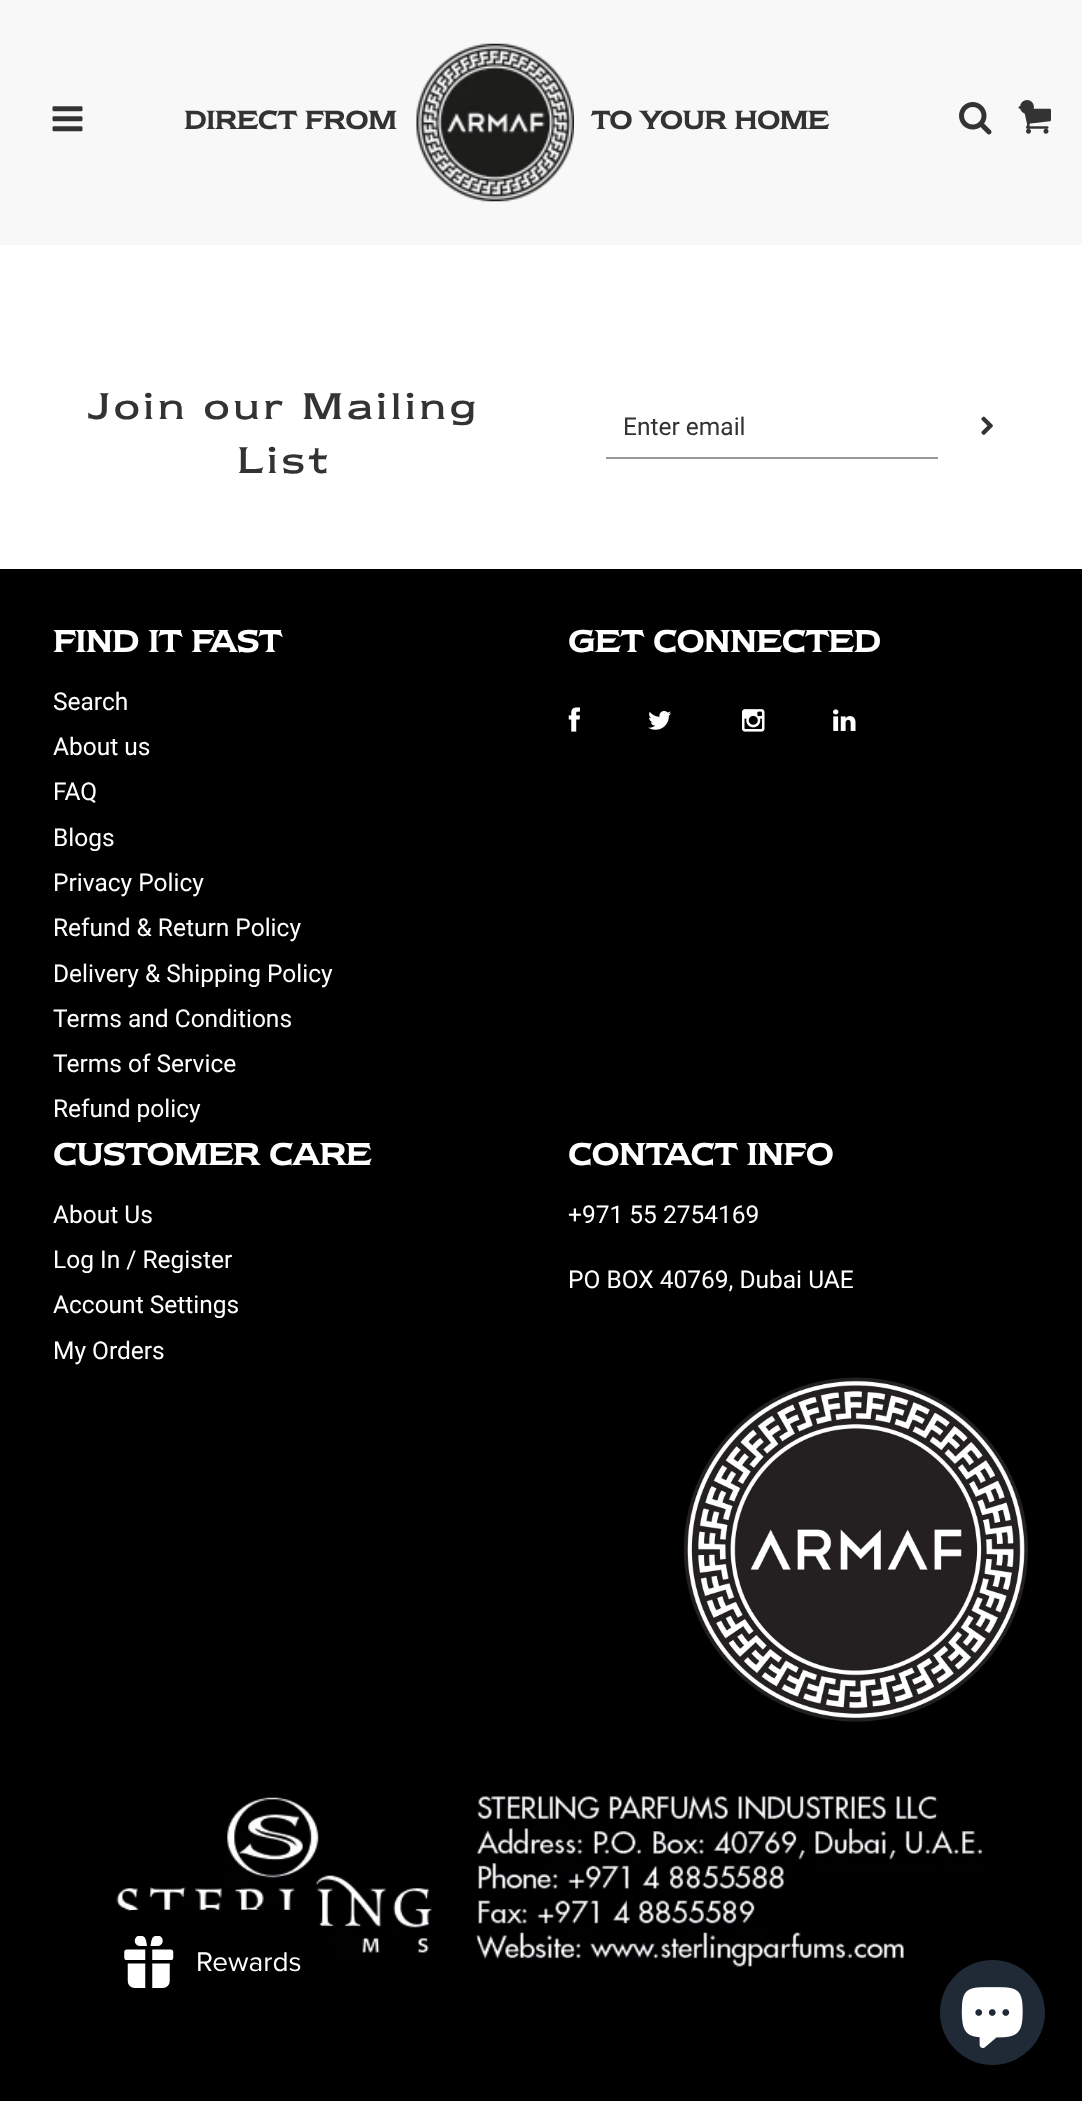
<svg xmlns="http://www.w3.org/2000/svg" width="1082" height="2101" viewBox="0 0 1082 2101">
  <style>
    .t1 { font: bold 26.25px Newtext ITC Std; fill: #333; }
    .t2 { font: 38.5px Newtext ITC Std; letter-spacing: 3.5px; fill: #333; }
    .t3 { font: 24.5px Roboto; fill: #333; }
    .t4 { font: bold 31.5px Newtext ITC Std; fill: #fff; }
    .t5 { font: 24.5px Roboto; fill: #fff; }
  </style>
  <rect width="100%" height="100%" fill="#fff"/>
  <rect x="0" y="0" width="1082" height="245" fill="#f8f8f8"/>
  <image x="52" y="106" width="31" height="26" href="images/1.png"/>
  <text x="184" y="129" class="t1">DIRECT FROM</text>
  <image x="416" y="43" width="158" height="159" href="images/2.png"/>
  <text x="591" y="129" class="t1">TO YOUR HOME</text>
  <image x="959" y="102" width="33" height="33" href="images/3.png"/>
  <image x="1018" y="106" width="33" height="28" href="images/4.png"/>
  <circle cx="1027" cy="107" r="7" fill="#333"/>
  <text x="88" y="419" class="t2">Join our Mailing</text>
  <text x="237" y="473" class="t2">List</text>
  <rect x="606" y="457" width="332" height="2" fill="#999"/>
  <text x="623" y="435" class="t3">Enter email</text>
  <image x="981" y="416" width="12" height="19" href="images/5.png"/>
  <rect x="0" y="569" width="1082" height="1532" fill="#000"/>
  <text x="53" y="652" class="t4">FIND IT FAST</text>
  <text x="53" y="710" class="t5">Search</text>
  <text x="53" y="755" class="t5">About us</text>
  <text x="53" y="800" class="t5">FAQ</text>
  <text x="53" y="846" class="t5">Blogs</text>
  <text x="53" y="891" class="t5">Privacy Policy</text>
  <text x="53" y="936" class="t5">Refund &amp; Return Policy</text>
  <text x="53" y="982" class="t5">Delivery &amp; Shipping Policy</text>
  <text x="53" y="1027" class="t5">Terms and Conditions</text>
  <text x="53" y="1072" class="t5">Terms of Service</text>
  <text x="53" y="1117" class="t5">Refund policy</text>
  <text x="568" y="652" class="t4">GET CONNECTED</text>
  <image x="568" y="707" width="12" height="25" href="images/6.png"/>
  <image x="648" y="711" width="24" height="19" href="images/7.png"/>
  <image x="742" y="709" width="23" height="23" href="images/8.png"/>
  <image x="833" y="709" width="23" height="22" href="images/9.png"/>
  <text x="53" y="1165" class="t4">CUSTOMER CARE</text>
  <text x="53" y="1223" class="t5">About Us</text>
  <text x="53" y="1268" class="t5">Log In / Register</text>
  <text x="53" y="1313" class="t5">Account Settings</text>
  <text x="53" y="1359" class="t5">My Orders</text>
  <text x="568" y="1165" class="t4">CONTACT INFO</text>
  <text x="568" y="1223" class="t5">+971 55 2754169</text>
  <text x="568" y="1288" class="t5">PO BOX 40769, Dubai UAE</text>
  <image x="683" y="1377" width="345" height="345" href="images/10.png"/>
  <image x="113" y="1794" width="870" height="173" href="images/11.png"/>
  <image x="113" y="1909" width="213" height="79" href="images/12.png"/>
  <circle cx="992.5" cy="2012.5" r="52.5" fill="#202a36"/>
  <image x="961" y="1987" width="62" height="61" href="images/13.png"/>
</svg>
